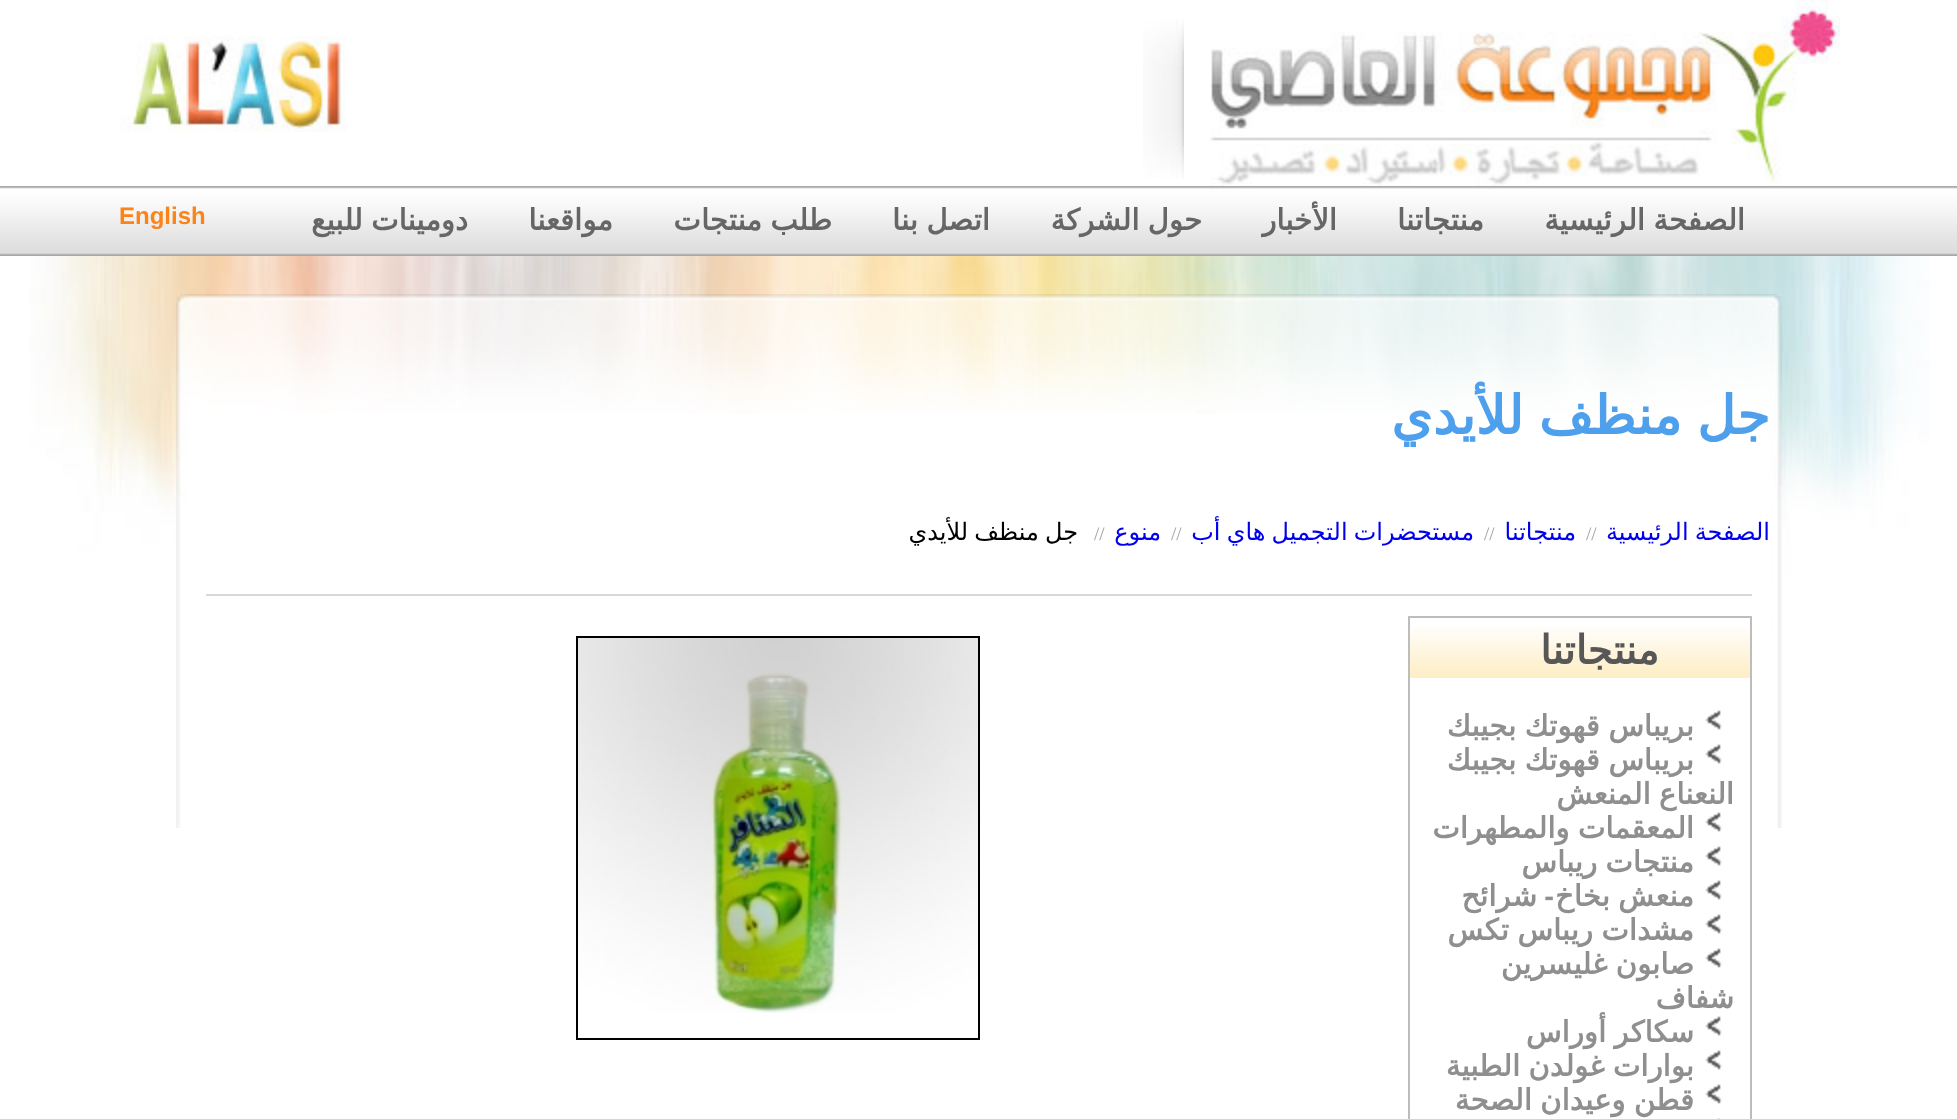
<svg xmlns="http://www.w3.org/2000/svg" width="1957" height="1119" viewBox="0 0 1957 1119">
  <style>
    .t1 { font: bold 29.25px DejaVu Sans; direction: rtl; fill: #666; }
    .t2 { font: bold 24px Liberation Sans; fill: #fc8318; }
    .t3 { font: bold 53.25px DejaVu Sans; direction: rtl; fill: #4ea0ed; }
    .t4 { font: 24px DejaVu Sans; direction: rtl; fill: #00e; }
    .t5 { font: 19px Liberation Serif; fill: #a0a0a0; }
    .t6 { font: 24px DejaVu Sans; direction: rtl; fill: #000; }
    .t7 { font: bold 40px DejaVu Sans; direction: rtl; fill: #585757; }
    .t8 { font: bold 29.25px DejaVu Sans; direction: rtl; fill: #8f8f8f; }
    .t9 { font: bold 29.25px Liberation Sans; direction: rtl; fill: #8f8f8f; }
  </style>
  <rect width="100%" height="100%" fill="#fff"/>
  <image x="30" y="256" width="1900" height="324" href="images/1.png"/>
  <image x="0" y="186" width="1957" height="70" href="images/2.png"/>
  <image x="1210" y="0" width="630" height="186" href="images/3.png"/>
  <image x="1143" y="19" width="41" height="159" href="images/4.png"/>
  <image x="120" y="36" width="226" height="96" href="images/5.png"/>
  <text x="1745" y="230" word-spacing="-1" class="t1">الصفحة الرئيسية</text>
  <text x="1484" y="230" class="t1">منتجاتنا</text>
  <text x="1337" y="230" class="t1">الأخبار</text>
  <text x="1202" y="230" word-spacing="-1" class="t1">حول الشركة</text>
  <text x="990" y="230" word-spacing="-1" class="t1">اتصل بنا</text>
  <text x="832" y="230" word-spacing="-1" class="t1">طلب منتجات</text>
  <text x="613" y="230" class="t1">مواقعنا</text>
  <text x="468" y="230" word-spacing="-1" class="t1">دومينات للبيع</text>
  <text x="119" y="224" class="t2">English</text>
  <rect x="188" y="414" width="1582" height="166" fill="#fff"/>
  <image x="188" y="294" width="1582" height="120" href="images/6.png"/>
  <image x="1770" y="294" width="12" height="534" href="images/7.png"/>
  <text x="1770" y="434" word-spacing="-2" class="t3">جل منظف للأيدي</text>
  <image x="176" y="294" width="12" height="534" href="images/8.png"/>
  <text x="1770" y="540" word-spacing="-1.5" class="t4">الصفحة الرئيسية</text>
  <text x="1586" y="540" class="t5">//</text>
  <text x="1576" y="540" class="t4">منتجاتنا</text>
  <text x="1484" y="540" class="t5">//</text>
  <text x="1474" y="540" word-spacing="-1.5" class="t4">مستحضرات التجميل هاي أب</text>
  <text x="1171" y="540" class="t5">//</text>
  <text x="1161" y="540" class="t4">منوع</text>
  <text x="1094" y="540" class="t5">//</text>
  <text x="1078" y="540" word-spacing="-1.5" class="t6">جل منظف للأيدي</text>
  <rect x="206" y="594" width="1546" height="2" fill="#dad8d8"/>
  <rect x="1409" y="617" width="342" height="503" fill="none" stroke="#bdbdbd" stroke-width="2"/>
  <image x="1410" y="626" width="340" height="52" href="images/9.png"/>
  <text x="1659" y="664" class="t7">منتجاتنا</text>
  <image x="1705" y="710" width="18" height="20" href="images/10.png"/>
  <text x="1694" y="736" word-spacing="-1" class="t8">بريباس قهوتك بجيبك</text>
  <image x="1705" y="744" width="18" height="20" href="images/10.png"/>
  <text x="1694" y="770" word-spacing="-1" class="t8">بريباس قهوتك بجيبك</text>
  <text x="1734" y="804" word-spacing="-1" class="t8">النعناع المنعش</text>
  <image x="1705" y="812" width="18" height="20" href="images/10.png"/>
  <text x="1694" y="838" word-spacing="-1" class="t8">المعقمات والمطهرات</text>
  <image x="1705" y="846" width="18" height="20" href="images/10.png"/>
  <text x="1694" y="872" word-spacing="-1" class="t8">منتجات ريباس</text>
  <image x="1705" y="880" width="18" height="20" href="images/10.png"/>
  <text x="1694" y="906" word-spacing="-1" class="t8">منعش بخاخ</text>
  <text x="1554" y="906" class="t9">-</text>
  <text x="1537" y="906" class="t8">شرائح</text>
  <image x="1705" y="914" width="18" height="20" href="images/10.png"/>
  <text x="1694" y="940" word-spacing="-1" class="t8">مشدات ريباس تكس</text>
  <image x="1705" y="948" width="18" height="20" href="images/10.png"/>
  <text x="1694" y="974" word-spacing="-1" class="t8">صابون غليسرين</text>
  <text x="1734" y="1008" class="t8">شفاف</text>
  <image x="1705" y="1016" width="18" height="20" href="images/10.png"/>
  <text x="1694" y="1042" word-spacing="-1" class="t8">سكاكر أوراس</text>
  <image x="1705" y="1050" width="18" height="20" href="images/10.png"/>
  <text x="1694" y="1076" word-spacing="-1" class="t8">بوارات غولدن الطبية</text>
  <image x="1705" y="1084" width="18" height="20" href="images/10.png"/>
  <text x="1694" y="1110" word-spacing="-1" class="t8">قطن وعيدان الصحة</text>
  <image x="1717" y="1118" width="4" height="1" href="images/11.png"/>
  <rect x="577" y="637" width="402" height="402" fill="none" stroke="#000" stroke-width="2"/>
  <image x="578" y="638" width="400" height="375" href="images/12.png"/>
</svg>
